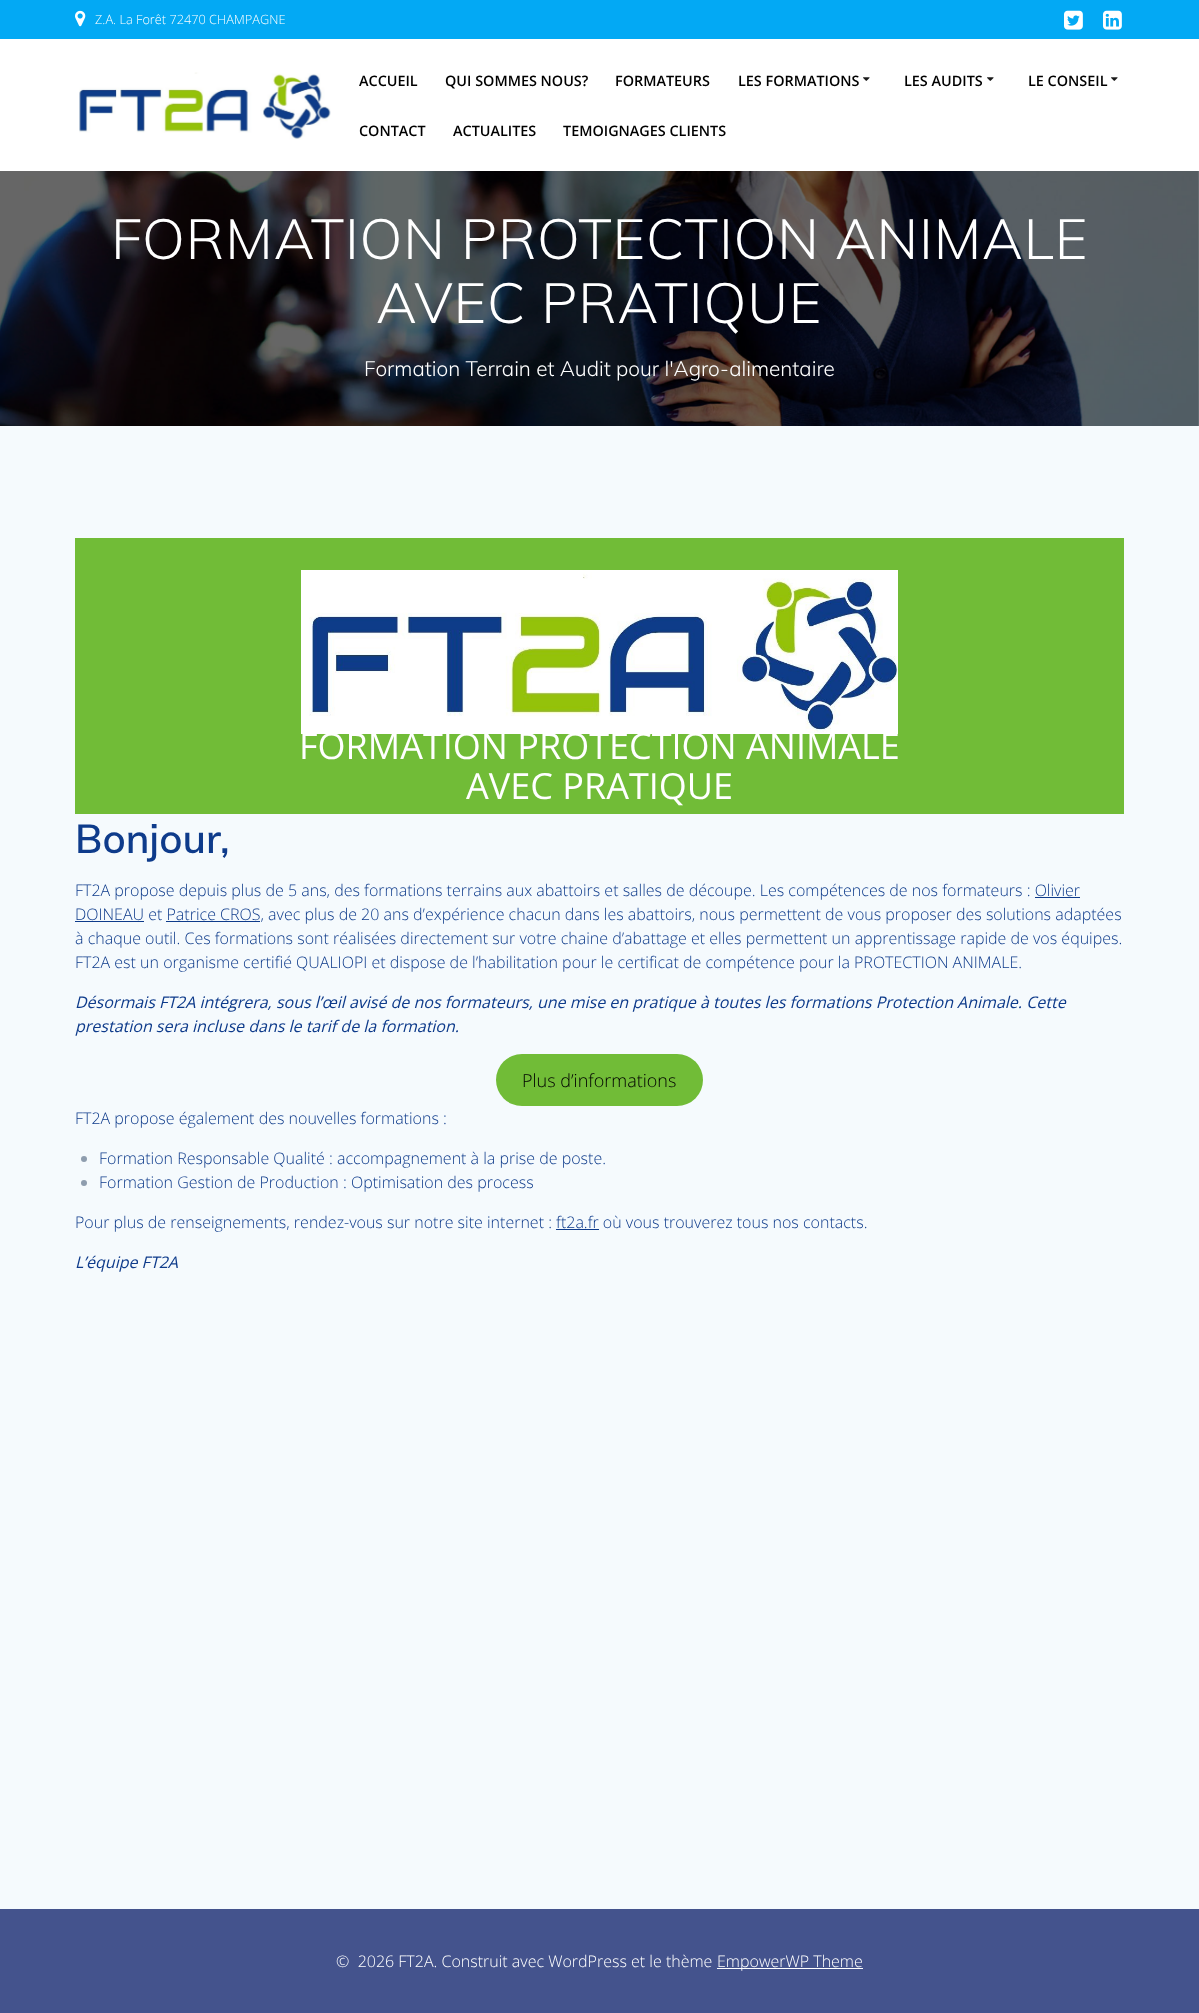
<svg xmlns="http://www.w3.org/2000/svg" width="1199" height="2013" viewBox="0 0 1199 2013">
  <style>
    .t1 { font: 300 12.75px Open Sans; fill: #fff; }
    .t2 { font: 600 14.4px Open Sans; fill: #000; }
    .t3 { font: 300 56px Muli; letter-spacing: 0.9px; fill: #fff; }
    .t4 { font: 300 20.8px Muli; fill: #fff; }
    .t5 { font: 36px Open Sans; fill: #fff; }
    .t6 { font: 600 40px Muli; fill: #0e3b8b; }
    .t7 { font: 300 16px Open Sans; fill: #0e3b8b; }
    .t8 { font: italic 16px Open Sans; fill: #0e3b8b; }
    .t9 { font: 300 18px Open Sans; fill: #000; }
    .t10 { font: 300 16px Open Sans; fill: #fff; }
  </style>
  <rect width="100%" height="100%" fill="#fff"/>
  <rect x="0" y="0" width="1199" height="39" fill="#03a9f4"/>
  <image x="75" y="10" width="11" height="17" href="images/1.png"/>
  <text x="95" y="24" class="t1">Z.A. La Forêt 72470 CHAMPAGNE</text>
  <image x="1064" y="10" width="19" height="20" href="images/2.png"/>
  <image x="1103" y="10" width="19" height="20" href="images/3.png"/>
  <image x="79" y="72" width="252" height="68" href="images/4.png"/>
  <text x="359" y="86" class="t2">ACCUEIL</text>
  <text x="445" y="86" class="t2">QUI SOMMES NOUS?</text>
  <text x="615" y="86" class="t2">FORMATEURS</text>
  <text x="738" y="86" class="t2">LES FORMATIONS</text>
  <image x="863" y="77" width="7" height="4" href="images/5.png"/>
  <text x="904" y="86" class="t2">LES AUDITS</text>
  <image x="987" y="77" width="7" height="4" href="images/5.png"/>
  <text x="1028" y="86" class="t2">LE CONSEIL</text>
  <image x="1111" y="77" width="7" height="4" href="images/5.png"/>
  <text x="359" y="136" class="t2">CONTACT</text>
  <text x="453" y="136" class="t2">ACTUALITES</text>
  <text x="563" y="136" class="t2">TEMOIGNAGES CLIENTS</text>
  <image x="0" y="171" width="1199" height="255" href="images/6.png"/>
  <text x="111" y="259" class="t3">FORMATION PROTECTION ANIMALE</text>
  <text x="376" y="323" class="t3">AVEC PRATIQUE</text>
  <text x="364" y="376" class="t4">Formation Terrain et Audit pour l'Agro-alimentaire</text>
  <rect x="0" y="426" width="1199" height="1483" fill="#f5fafd"/>
  <rect x="75" y="538" width="1049" height="276" fill="#71bc37"/>
  <image x="301" y="570" width="597" height="164" href="images/7.png"/>
  <text x="299" y="759" class="t5">FORMATION PROTECTION ANIMALE</text>
  <text x="466" y="799" class="t5">AVEC PRATIQUE</text>
  <text x="75" y="853" class="t6">Bonjour,</text>
  <text x="75" y="896" class="t7">FT2A propose depuis plus de 5 ans, des formations terrains aux abattoirs et salles de découpe. Les compétences de nos formateurs : Olivier</text>
  <rect x="1035" y="897" width="45" height="1" fill="#0e3b8b"/>
  <rect x="75" y="921" width="69" height="1" fill="#0e3b8b"/>
  <text x="75" y="920" class="t7">DOINEAU et Patrice CROS, avec plus de 20 ans d’expérience chacun dans les abattoirs, nous permettent de vous proposer des solutions adaptées</text>
  <rect x="166" y="921" width="94" height="1" fill="#0e3b8b"/>
  <text x="75" y="944" class="t7">à chaque outil. Ces formations sont réalisées directement sur votre chaine d’abattage et elles permettent un apprentissage rapide de vos équipes.</text>
  <text x="75" y="968" class="t7">FT2A est un organisme certifié QUALIOPI et dispose de l’habilitation pour le certificat de compétence pour la PROTECTION ANIMALE.</text>
  <text x="75" y="1008" class="t8">Désormais FT2A intégrera, sous l’œil avisé de nos formateurs, une mise en pratique à toutes les formations Protection Animale. Cette</text>
  <text x="75" y="1032" class="t8">prestation sera incluse dans le tarif de la formation.</text>
  <rect x="496" y="1054" width="207" height="52" rx="26" fill="#71bc37"/>
  <text x="522" y="1087" class="t9">Plus d’informations</text>
  <text x="75" y="1124" class="t7">FT2A propose également des nouvelles formations :</text>
  <circle cx="84" cy="1159" r="3" fill="#8e9dae"/>
  <text x="99" y="1164" class="t7">Formation Responsable Qualité : accompagnement à la prise de poste.</text>
  <circle cx="84" cy="1183" r="3" fill="#8e9dae"/>
  <text x="99" y="1188" class="t7">Formation Gestion de Production : Optimisation des process</text>
  <text x="75" y="1228" class="t7">Pour plus de renseignements, rendez-vous sur notre site internet : ft2a.fr où vous trouverez tous nos contacts.</text>
  <rect x="556" y="1229" width="43" height="1" fill="#0e3b8b"/>
  <text x="75" y="1268" class="t8">L’équipe FT2A</text>
  <rect x="0" y="1909" width="1199" height="104" fill="#44538d"/>
  <text x="336" y="1967" class="t10" xml:space="preserve">©  2026 FT2A. Construit avec WordPress et le thème</text>
  <rect x="717" y="1968" width="146" height="1" fill="#fff"/>
  <text x="717" y="1967" class="t10">EmpowerWP Theme</text>
</svg>
